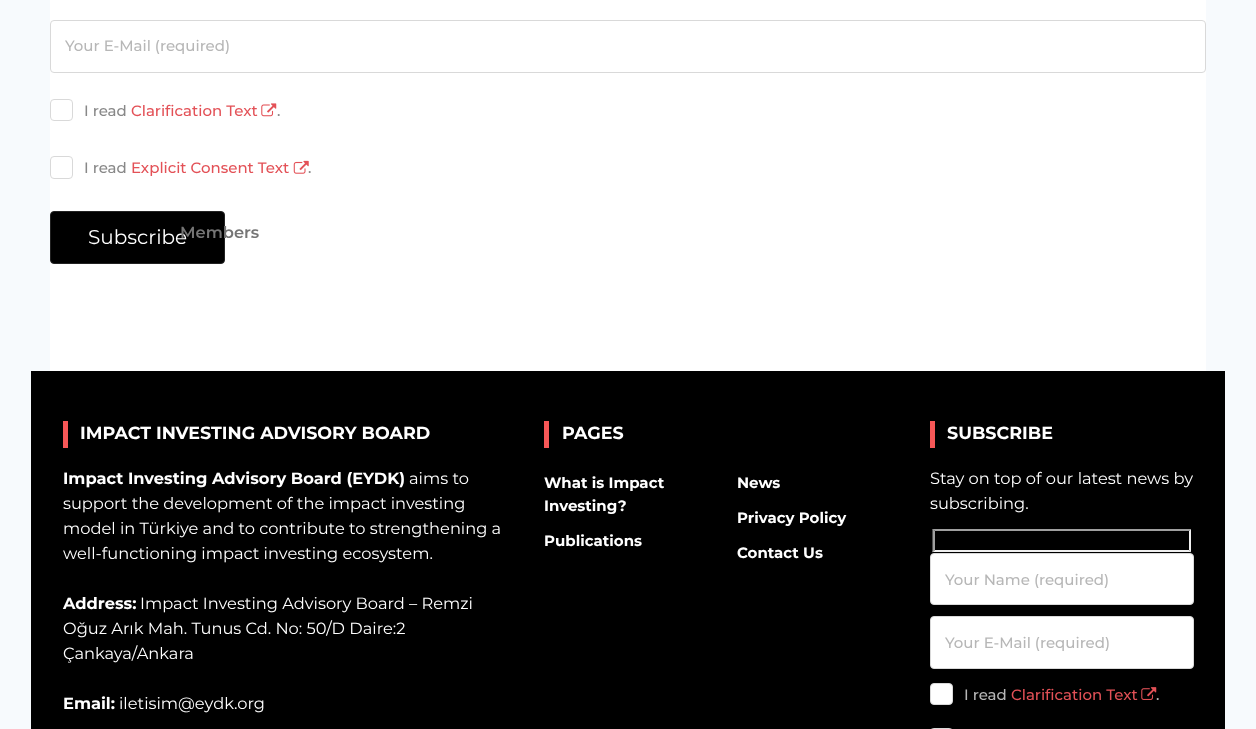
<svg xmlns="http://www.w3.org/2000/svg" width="1256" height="729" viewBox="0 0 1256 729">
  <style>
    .t1 { font: 500 15px Montserrat; fill: #b7b7b7; }
    .t2 { font: 500 15px Montserrat; fill: #888; }
    .t3 { font: 500 15px Montserrat; fill: #e35157; }
    .t4 { font: 20px Montserrat; fill: #fff; }
    .t5 { font: 600 16.25px Montserrat; fill: #757575; }
    .t6 { font: bold 17.5px Montserrat; fill: #fff; }
    .t7 { font: bold 16.25px Montserrat; fill: #fff; }
    .t8 { font: 16.25px Montserrat; fill: #fff; }
    .t9 { font: bold 15px Montserrat; fill: #fff; }
  </style>
  <rect width="100%" height="100%" fill="#f7fafd"/>
  <rect x="50" y="0" width="1156" height="371" fill="#fff"/>
  <rect x="50.5" y="20.5" width="1155" height="52" rx="3.5" fill="none" stroke="#d9d9d9"/>
  <text x="65" y="51" class="t1">Your E-Mail (required)</text>
  <rect x="50.5" y="99.5" width="22" height="21" rx="3.5" fill="none" stroke="#d9d9d9"/>
  <text x="84" y="116" class="t2">I read</text>
  <text x="131" y="116" class="t3">Clarification Text</text>
  <image x="261" y="103" width="16" height="14" href="images/1.png"/>
  <text x="277" y="116" class="t2">.</text>
  <rect x="50.5" y="156.5" width="22" height="22" rx="3.5" fill="none" stroke="#d9d9d9"/>
  <text x="84" y="173" class="t2">I read</text>
  <text x="131" y="173" class="t3">Explicit Consent Text</text>
  <image x="293" y="160" width="16" height="14" href="images/2.png"/>
  <text x="308" y="173" class="t2">.</text>
  <rect x="50.5" y="211.5" width="174" height="52" rx="3.5" fill="#000" stroke="#222"/>
  <text x="88" y="244" class="t4">Subscribe</text>
  <text x="180" y="238" class="t5">Members</text>
  <rect x="31" y="371" width="1194" height="358" fill="#000"/>
  <rect x="63" y="421" width="5" height="27" fill="#f65757"/>
  <text x="80" y="439" class="t6">IMPACT INVESTING ADVISORY BOARD</text>
  <text x="63" y="484" class="t7">Impact Investing Advisory Board (EYDK)</text>
  <text x="409" y="484" class="t8">aims to</text>
  <text x="63" y="509" class="t8">support the development of the impact investing</text>
  <text x="63" y="534" class="t8">model in Türkiye and to contribute to strengthening a</text>
  <text x="63" y="559" class="t8">well-functioning impact investing ecosystem.</text>
  <text x="63" y="609" class="t7">Address:</text>
  <text x="140" y="609" class="t8">Impact Investing Advisory Board – Remzi</text>
  <text x="63" y="634" class="t8">Oğuz Arık Mah. Tunus Cd. No: 50/D Daire:2</text>
  <text x="63" y="659" class="t8">Çankaya/Ankara</text>
  <text x="63" y="709" class="t7">Email:</text>
  <text x="119" y="709" class="t8">iletisim@eydk.org</text>
  <rect x="544" y="421" width="5" height="27" fill="#f65757"/>
  <text x="562" y="439" class="t6">PAGES</text>
  <text x="544" y="488" class="t9">What is Impact</text>
  <text x="544" y="511" class="t9">Investing?</text>
  <text x="544" y="546" class="t9">Publications</text>
  <text x="737" y="488" class="t9">News</text>
  <text x="737" y="523" class="t9">Privacy Policy</text>
  <text x="737" y="558" class="t9">Contact Us</text>
  <rect x="930" y="421" width="5" height="27" fill="#f65757"/>
  <text x="947" y="439" class="t6">SUBSCRIBE</text>
  <text x="930" y="484" class="t8">Stay on top of our latest news by</text>
  <text x="930" y="509" class="t8">subscribing.</text>
  <path d="M932 529H1191L1189 531H935Z" fill="#9f9f9f"/>
  <path d="M1191 529V552.5L1189 550V531Z" fill="#efefef"/>
  <path d="M1191 552H932L935 550H1189Z" fill="#efefef"/>
  <path d="M932.5 552.5V529L935 531V550Z" fill="#9f9f9f"/>
  <rect x="930.5" y="553.5" width="263" height="51" rx="3.5" fill="#fff" stroke="#d9d9d9"/>
  <text x="945" y="585" class="t1">Your Name (required)</text>
  <rect x="930.5" y="616.5" width="263" height="52" rx="3.5" fill="#fff" stroke="#d9d9d9"/>
  <text x="945" y="648" class="t1">Your E-Mail (required)</text>
  <rect x="930.5" y="683.5" width="22" height="21" rx="3.5" fill="#fff" stroke="#d9d9d9"/>
  <text x="964" y="700" class="t1">I read</text>
  <text x="1011" y="700" class="t3">Clarification Text</text>
  <image x="1141" y="687" width="16" height="13" href="images/3.png"/>
  <text x="1156" y="700" class="t1">.</text>
  <rect x="930.5" y="728.5" width="22" height="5" rx="3.5" fill="none" stroke="#d9d9d9"/>
</svg>
